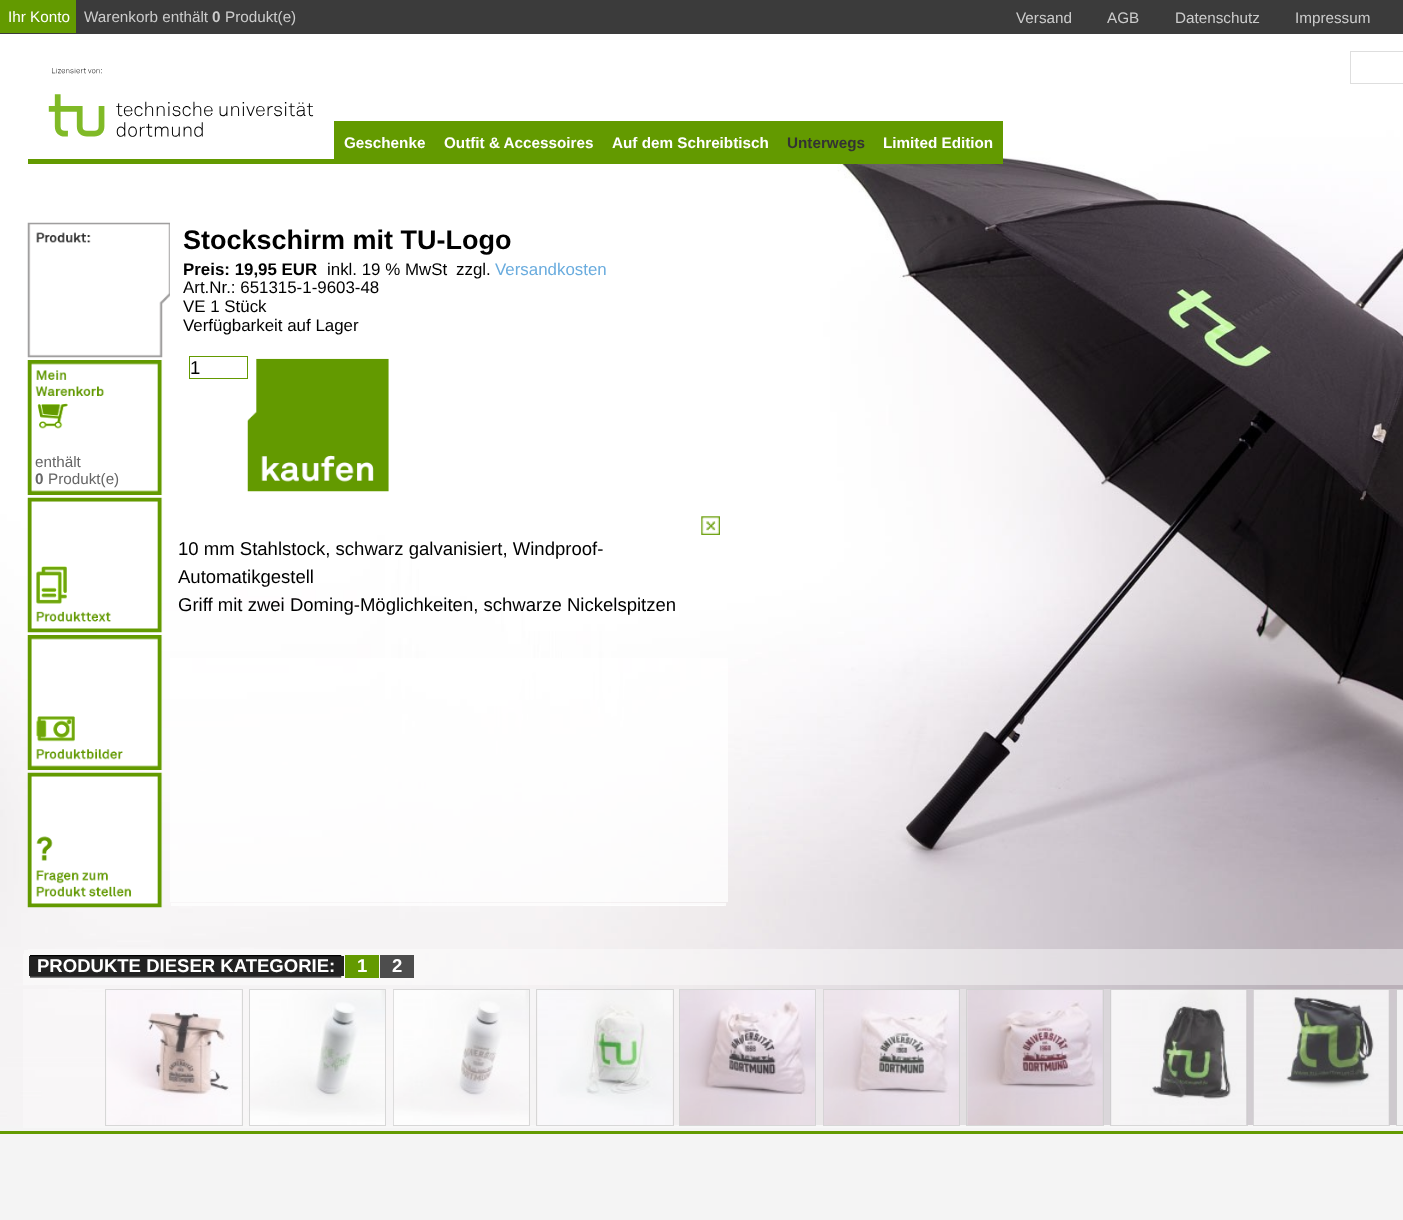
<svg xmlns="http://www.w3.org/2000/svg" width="1403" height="1220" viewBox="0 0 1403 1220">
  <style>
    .t1 { font: 15.25px Liberation Sans; fill: #fff; }
    .t2 { font: 15.25px Liberation Sans; fill: #ccc; }
    .t3 { font: bold 15.25px Liberation Sans; fill: #ccc; }
    .t4 { font: bold 15.25px Liberation Sans; fill: #fff; }
    .t5 { font: bold 15.25px Liberation Sans; fill: #333; }
    .t6 { font: 15.25px Liberation Sans; fill: #666; }
    .t7 { font: bold 15.25px Liberation Sans; fill: #666; }
    .t8 { font: bold 27px Liberation Sans; fill: #000; }
    .t9 { font: bold 16.9px Liberation Sans; fill: #000; }
    .t10 { font: 16.9px Liberation Sans; fill: #000; }
    .t11 { font: 16.9px Liberation Sans; fill: #6aacde; }
    .t12 { font: 18.55px Liberation Sans; fill: #000; }
    .t13 { font: bold 18.55px Liberation Sans; fill: #fff; }
  </style>
  <rect width="100%" height="100%" fill="#f4f4f4"/>
  <rect x="0" y="0" width="1403" height="34" fill="#3b3b3b"/>
  <rect x="0" y="0" width="76" height="33" fill="#639a00"/>
  <text x="8" y="22" class="t1">Ihr Konto</text>
  <text x="84" y="22" class="t2">Warenkorb enthält</text>
  <text x="212" y="22" class="t3">0</text>
  <text x="225" y="22" class="t2">Produkt(e)</text>
  <text x="1016" y="23" class="t2">Versand</text>
  <text x="1107" y="23" class="t2">AGB</text>
  <text x="1175" y="23" class="t2">Datenschutz</text>
  <text x="1295" y="23" class="t2">Impressum</text>
  <image x="0" y="34" width="1403" height="1091" href="images/19.png"/>
  <rect x="1350.5" y="51.5" width="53" height="32" fill="none" stroke="#dedede"/>
  <rect x="334" y="121" width="669" height="43" fill="#639a00"/>
  <text x="344" y="148" class="t4">Geschenke</text>
  <text x="444" y="148" class="t4">Outfit &amp; Accessoires</text>
  <text x="612" y="148" class="t4">Auf dem Schreibtisch</text>
  <text x="787" y="148" class="t5">Unterwegs</text>
  <text x="883" y="148" class="t4">Limited Edition</text>
  <rect x="28" y="159" width="306" height="5" fill="#639a00"/>
  <image x="27" y="222" width="143" height="136" href="images/1.png"/>
  <image x="27" y="360" width="136" height="135" href="images/2.png"/>
  <text x="35" y="467" class="t6">enthält</text>
  <text x="35" y="484" class="t7">0</text>
  <text x="48" y="484" class="t6">Produkt(e)</text>
  <image x="27" y="497" width="136" height="136" href="images/3.png"/>
  <image x="27" y="635" width="136" height="135" href="images/4.png"/>
  <image x="27" y="772" width="136" height="136" href="images/5.png"/>
  <text x="183" y="249" class="t8">Stockschirm mit TU-Logo</text>
  <text x="183" y="275" class="t9">Preis: 19,95 EUR</text>
  <text x="327" y="275" class="t10">inkl. 19 % MwSt</text>
  <text x="456" y="275" class="t10">zzgl.</text>
  <text x="495" y="275" class="t11">Versandkosten</text>
  <text x="183" y="293" class="t10">Art.Nr.: 651315-1-9603-48</text>
  <text x="183" y="312" class="t10">VE 1 Stück</text>
  <text x="183" y="331" class="t10">Verfügbarkeit auf Lager</text>
  <rect x="189.5" y="356.5" width="58" height="22" fill="none" stroke="#639a00"/>
  <text x="190" y="374" class="t12">1</text>
  <image x="247" y="358" width="142" height="134" href="images/6.png"/>
  <image x="701" y="516" width="19" height="19" href="images/7.png"/>
  <text x="178" y="555" class="t12">10 mm Stahlstock, schwarz galvanisiert, Windproof-</text>
  <text x="178" y="583" class="t12">Automatikgestell</text>
  <text x="178" y="611" class="t12">Griff mit zwei Doming-Möglichkeiten, schwarze Nickelspitzen</text>
  <rect x="170" y="658" width="558" height="243" fill="#ffffffbf"/>
  <rect x="170" y="901" width="558" height="1" fill="#ffffffbf"/>
  <rect x="171" y="903" width="555" height="3" fill="#ffffffbf"/>
  <rect x="583" y="905" width="141" height="1" fill="#ffffffbf"/>
  <rect x="28" y="949" width="1375" height="1" fill="#ffffff66"/>
  <rect x="24" y="950" width="1379" height="4" fill="#ffffff66"/>
  <rect x="23" y="954" width="1380" height="31" fill="#ffffff66"/>
  <rect x="29" y="956" width="315" height="20" fill="#222"/>
  <image x="30" y="955" width="312" height="2" href="images/8.png"/>
  <text x="37" y="972" class="t13">PRODUKTE DIESER KATEGORIE:</text>
  <image x="30" y="976" width="312" height="2" href="images/9.png"/>
  <rect x="345" y="955" width="34" height="23" fill="#639a00"/>
  <text x="357" y="972" class="t13">1</text>
  <rect x="380" y="955" width="34" height="23" fill="#4d4d4d"/>
  <text x="392" y="972" class="t13">2</text>
  <rect x="23" y="989" width="1380" height="139" fill="#ffffff4d"/>
  <rect x="105.5" y="989.5" width="137" height="136" fill="none" stroke="#ccccccbf"/>
  <image x="107" y="990" width="134" height="135" href="images/10.png"/>
  <rect x="249.5" y="989.5" width="136" height="136" fill="none" stroke="#ccccccbf"/>
  <image x="250" y="990" width="135" height="135" href="images/11.png"/>
  <rect x="393.5" y="989.5" width="136" height="136" fill="none" stroke="#ccccccbf"/>
  <image x="393" y="990" width="136" height="135" href="images/12.png"/>
  <rect x="536.5" y="989.5" width="137" height="136" fill="none" stroke="#ccccccbf"/>
  <image x="538" y="990" width="135" height="135" href="images/13.png"/>
  <rect x="679.5" y="989.5" width="136" height="136" fill="none" stroke="#ccccccbf"/>
  <image x="680" y="990" width="135" height="135" href="images/14.png"/>
  <rect x="823.5" y="989.5" width="136" height="136" fill="none" stroke="#ccccccbf"/>
  <image x="823" y="990" width="136" height="135" href="images/15.png"/>
  <rect x="966.5" y="989.5" width="137" height="136" fill="none" stroke="#ccccccbf"/>
  <image x="967" y="990" width="136" height="135" href="images/16.png"/>
  <rect x="1110.5" y="989.5" width="137" height="136" fill="none" stroke="#ccccccbf"/>
  <image x="1111" y="990" width="136" height="135" href="images/17.png"/>
  <rect x="1253.5" y="989.5" width="136" height="136" fill="none" stroke="#ccccccbf"/>
  <image x="1253" y="990" width="136" height="135" href="images/18.png"/>
  <rect x="1396.5" y="989.5" width="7" height="136" fill="none" stroke="#ccccccbf"/>
  <rect x="1397" y="990" width="6" height="135" fill="#f2f1f2"/>
  <image x="48" y="68" width="266" height="69" href="images/20.png"/>
  <rect x="0" y="1131" width="1403" height="3" fill="#639a00"/>
</svg>
